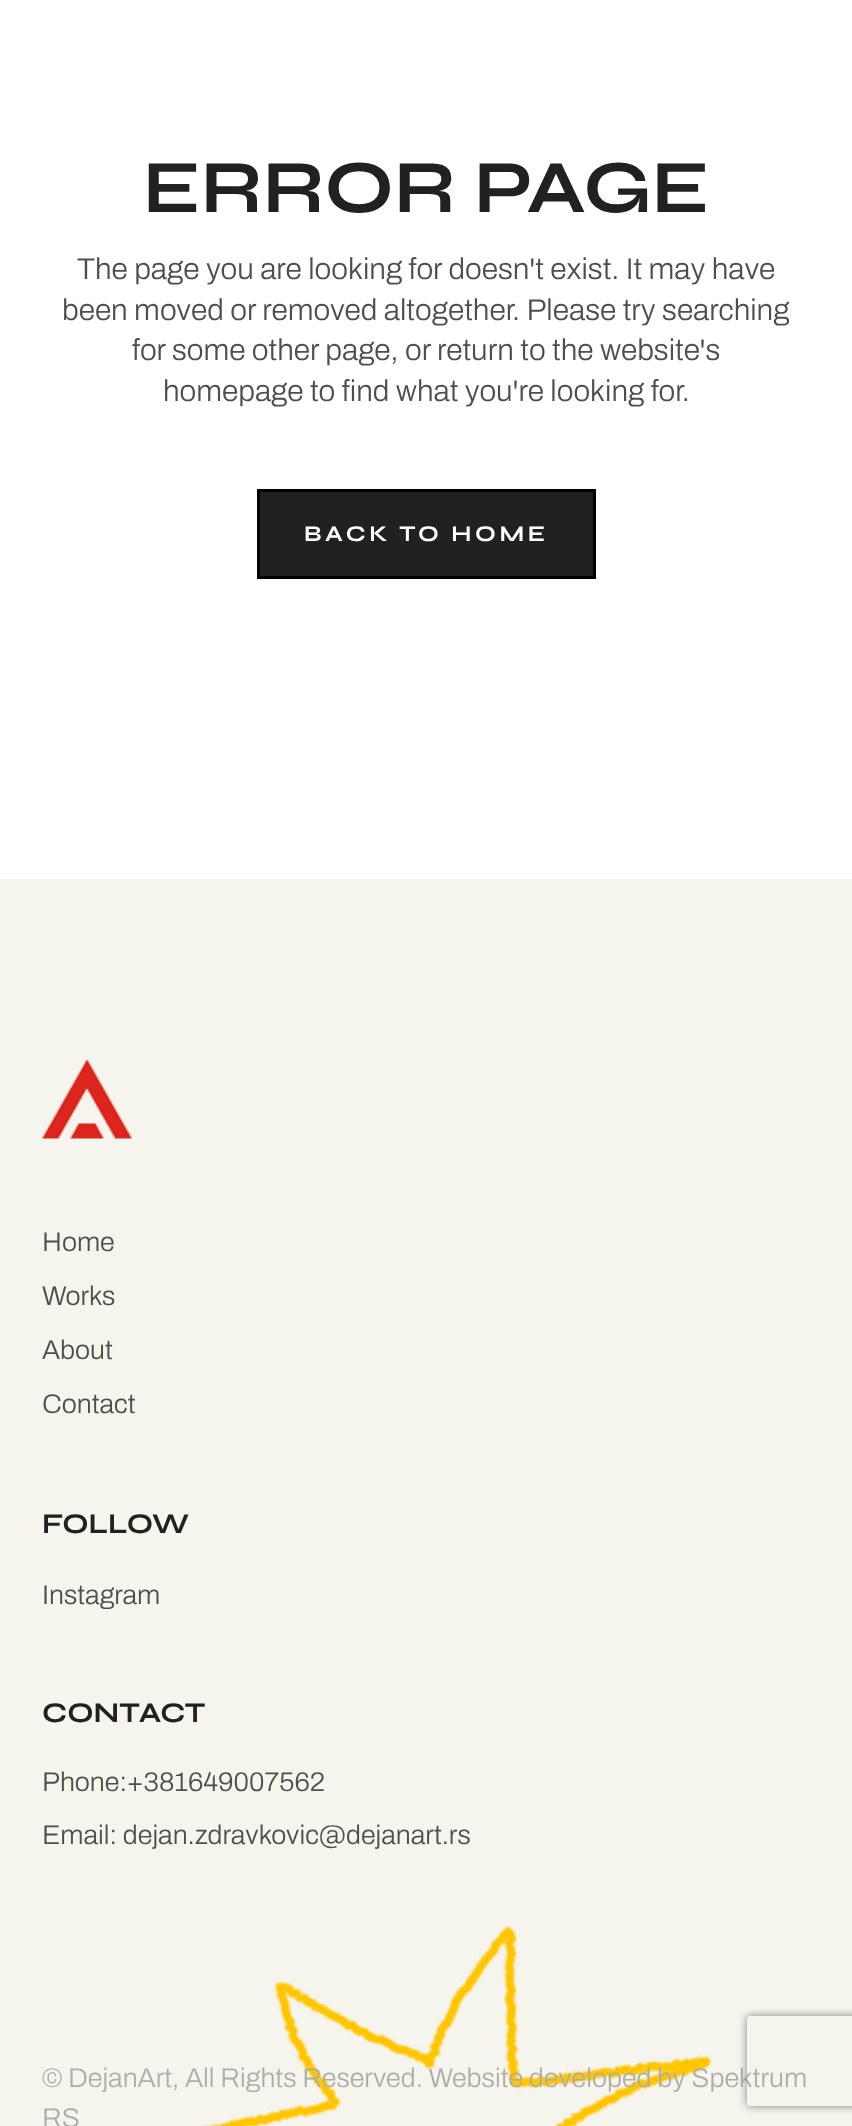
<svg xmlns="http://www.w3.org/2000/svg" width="852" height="2126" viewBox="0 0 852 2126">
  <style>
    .t1 { font: bold 75px Syne; fill: #212121; }
    .t2 { font: 300 30px Archivo; fill: #4e4e4e; }
    .t3 { font: bold 22.5px Syne; letter-spacing: 3.6px; fill: #fff; }
    .t4 { font: 300 27px Archivo; fill: #4e4e4e; }
    .t5 { font: bold 28.5px Syne; fill: #212121; }
    .t6 { font: 300 27px Archivo; fill: #aeada9; }
  </style>
  <defs>
    <clipPath id="clip1"><path d="M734 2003H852V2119H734ZM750 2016H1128C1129.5 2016 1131 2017.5 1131 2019V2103C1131 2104.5 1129.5 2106 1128 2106H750C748.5 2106 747 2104.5 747 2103V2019C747 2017.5 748.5 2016 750 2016Z" clip-rule="evenodd"/></clipPath>
  </defs>
  <rect width="100%" height="100%" fill="#fff"/>
  <text x="143" y="212" class="t1">ERROR PAGE</text>
  <text x="77" y="279" class="t2">The page you are looking for doesn't exist. It may have</text>
  <text x="62" y="320" class="t2">been moved or removed altogether. Please try searching</text>
  <text x="132" y="360" class="t2">for some other page, or return to the website's</text>
  <text x="163" y="401" class="t2">homepage to find what you're looking for.</text>
  <rect x="258.5" y="490.5" width="336" height="87" fill="#212121" stroke="#000" stroke-width="3"/>
  <text x="304" y="541" class="t3">BACK TO HOME</text>
  <rect x="0" y="879" width="852" height="1247" fill="#f5f4ed"/>
  <image x="201" y="1925" width="511" height="201" href="images/1.png"/>
  <image x="42" y="1059" width="90" height="80" href="images/2.png"/>
  <text x="42" y="1251" class="t4">Home</text>
  <text x="42" y="1305" class="t4">Works</text>
  <text x="42" y="1359" class="t4">About</text>
  <text x="42" y="1413" class="t4">Contact</text>
  <text x="42" y="1533" class="t5">FOLLOW</text>
  <text x="42" y="1604" class="t4">Instagram</text>
  <text x="42" y="1722" class="t5">CONTACT</text>
  <text x="42" y="1791" class="t4">Phone:+381649007562</text>
  <text x="42" y="1844" class="t4">Email: dejan.zdravkovic@dejanart.rs</text>
  <text x="42" y="2087" class="t6">© DejanArt, All Rights Reserved. Website developed by Spektrum</text>
  <text x="42" y="2127" class="t6">RS</text>
  <g clip-path="url(#clip1)">
    <rect x="747" y="2016" width="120" height="90" rx="3" fill="#808080" filter="blur(4px)"/>
  </g>
</svg>
